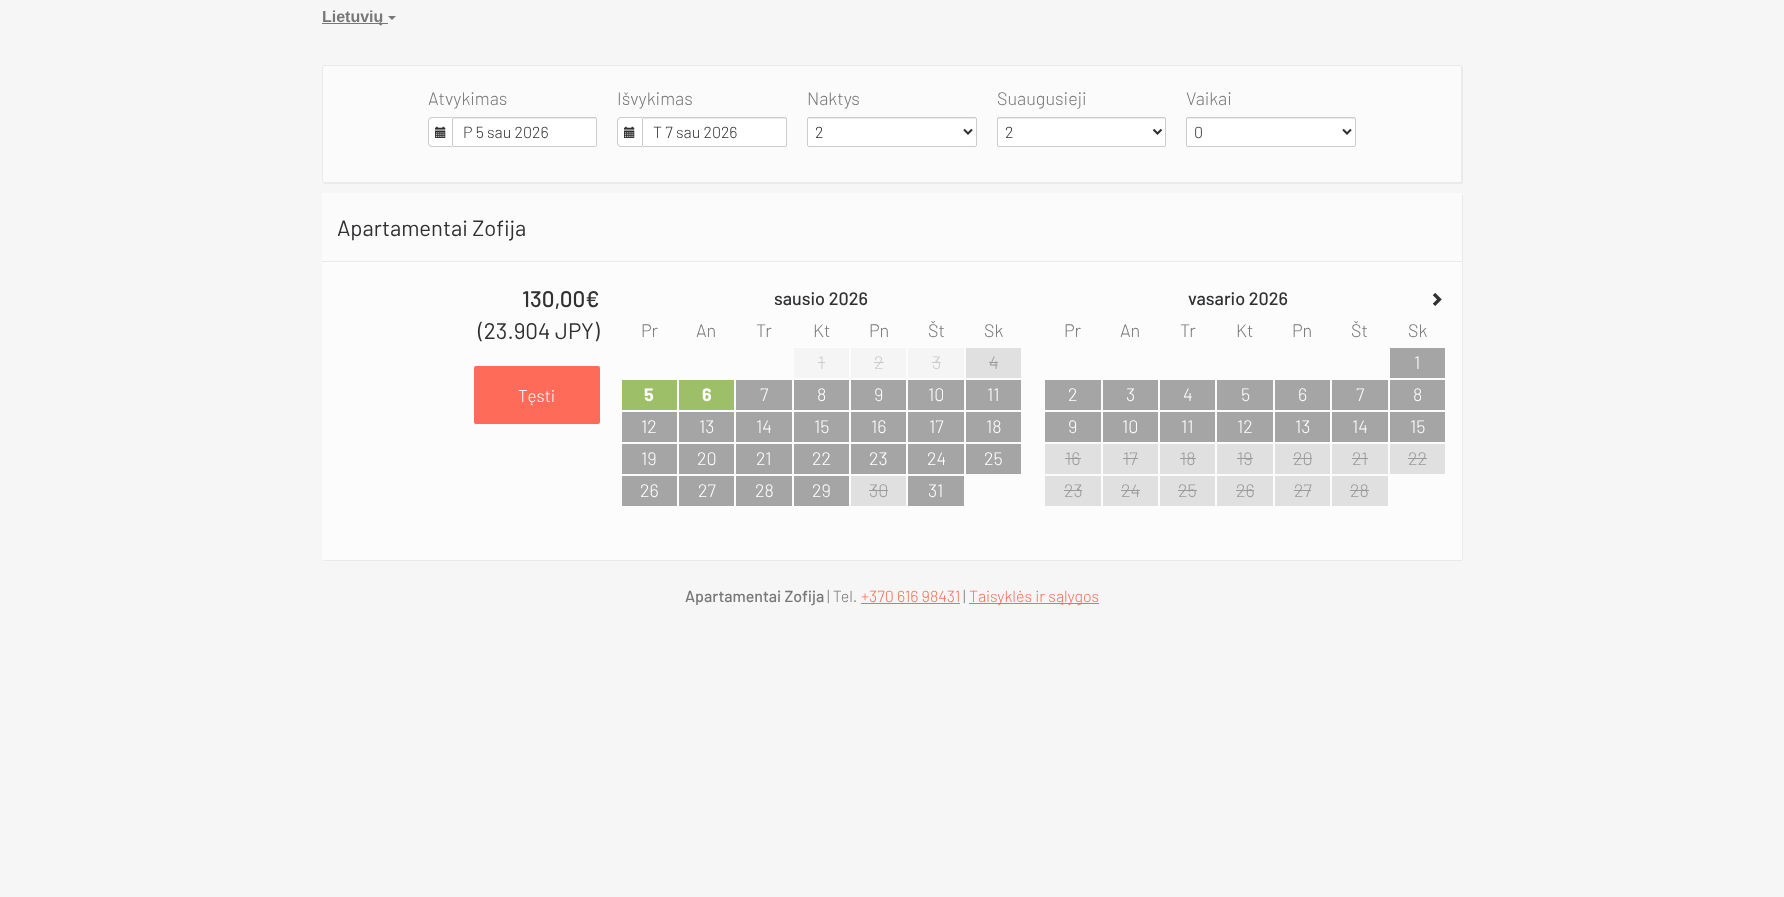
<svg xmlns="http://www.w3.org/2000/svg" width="1784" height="897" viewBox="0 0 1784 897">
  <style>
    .t1 { font: bold 16px Liberation Sans; fill: #777; }
    .t2 { font: 300 18px Barlow; fill: #777; }
    .t3 { font: 300 16px Barlow; fill: #303133; }
    .t4 { font: 22px Barlow; fill: #303133; }
    .t5 { font: 500 22.5px Barlow; fill: #303133; }
    .t6 { font: 22.5px Barlow; fill: #303133; }
    .t7 { font: 300 17px Barlow; fill: #fff; }
    .t8 { font: 500 18px Barlow; fill: #303133; }
    .t9 { font: 300 18px Barlow; fill: #ccc; }
    .t10 { font: 300 18px Barlow; fill: #9b9b9b; }
    .t11 { font: bold 18px Barlow; fill: #fff; }
    .t12 { font: 300 18px Barlow; fill: #fff; }
    .t13 { font: 500 16px Barlow; fill: #777; }
    .t14 { font: 300 16px Barlow; fill: #777; }
    .t15 { font: 300 16px Barlow; fill: #ff6b59; }
  </style>
  <rect width="100%" height="100%" fill="#f7f6f6"/>
  <rect x="322" y="23" width="66" height="1" fill="#777"/>
  <text x="322" y="22" class="t1">Lietuvių</text>
  <path d="M388 16H396L392 20Z" fill="#777"/>
  <rect x="323" y="66" width="1140" height="118" rx="2" fill="#eaeaea" filter="blur(0.5px)"/>
  <rect x="322.5" y="65.5" width="1139" height="117" rx="1.5" fill="#fbfbfb" stroke="#eaeaea"/>
  <text x="428" y="105" class="t2">Atvykimas</text>
  <path d="M432 117H452V147H432C430 147 428 145 428 143V121C428 119 430 117 432 117Z" fill="#fff"/>
  <path d="M432 117H452V147H432C430 147 428 145 428 143V121C428 119 430 117 432 117ZM432 118H452V146H432C430.5 146 429 144.5 429 143V121C429 119.5 430.5 118 432 118Z" fill="#ccc" fill-rule="evenodd"/>
  <image x="435" y="126" width="11" height="12" href="images/1.png"/>
  <rect x="452" y="117" width="145" height="30" rx="2" fill="#fff"/>
  <path d="M454 119H595C596 119 596 119 596 120C596 119 596 118 595 118H453V120C453 119 453 119 454 119Z" fill="#ececec"/>
  <rect x="452.5" y="117.5" width="144" height="29" rx="1.5" fill="none" stroke="#ccc"/>
  <text x="463" y="138" class="t3">P 5 sau 2026</text>
  <text x="617" y="105" class="t2">Išvykimas</text>
  <path d="M621 117H642V147H621C619 147 617 145 617 143V121C617 119 619 117 621 117Z" fill="#fff"/>
  <path d="M621 117H642V147H621C619 147 617 145 617 143V121C617 119 619 117 621 117ZM621 118H642V146H621C619.5 146 618 144.5 618 143V121C618 119.5 619.5 118 621 118Z" fill="#ccc" fill-rule="evenodd"/>
  <image x="624" y="126" width="11" height="12" href="images/1.png"/>
  <rect x="642" y="117" width="145" height="30" rx="2" fill="#fff"/>
  <path d="M644 119H785C786 119 786 119 786 120C786 119 786 118 785 118H643V120C643 119 643 119 644 119Z" fill="#ececec"/>
  <rect x="642.5" y="117.5" width="144" height="29" rx="1.5" fill="none" stroke="#ccc"/>
  <text x="653" y="138" class="t3">T 7 sau 2026</text>
  <text x="807" y="105" class="t2">Naktys</text>
  <rect x="807" y="117" width="170" height="30" rx="2" fill="#fff"/>
  <path d="M809 119H975C976 119 976 119 976 120V118H809C808 118 808 119 808 120C808 119 808 119 809 119Z" fill="#ececec"/>
  <rect x="807.5" y="117.5" width="169" height="29" rx="1.5" fill="none" stroke="#ccc"/>
  <path d="M964 129.5L968 133.5L972 129.5" fill="none" stroke="#2f2f2f" stroke-width="2"/>
  <text x="815" y="138" class="t3">2</text>
  <text x="997" y="105" class="t2">Suaugusieji</text>
  <rect x="997" y="117" width="169" height="30" rx="2" fill="#fff"/>
  <path d="M999 119H1164C1165 119 1165 119 1165 120C1165 119 1165 118 1164 118H998V120C998 119 998 119 999 119Z" fill="#ececec"/>
  <rect x="997.5" y="117.5" width="168" height="29" rx="1.5" fill="none" stroke="#ccc"/>
  <path d="M1153.5 129.5L1157.5 133.5L1161.5 129.5" fill="none" stroke="#2f2f2f" stroke-width="2"/>
  <text x="1005" y="138" class="t3">2</text>
  <text x="1186" y="105" class="t2">Vaikai</text>
  <rect x="1186" y="117" width="170" height="30" rx="2" fill="#fff"/>
  <path d="M1188 119H1354C1355 119 1355 119 1355 120V118H1188C1187 118 1187 119 1187 120C1187 119 1187 119 1188 119Z" fill="#ececec"/>
  <rect x="1186.5" y="117.5" width="169" height="29" rx="1.5" fill="none" stroke="#ccc"/>
  <path d="M1343 129.5L1347 133.5L1351 129.5" fill="none" stroke="#2f2f2f" stroke-width="2"/>
  <text x="1194" y="138" class="t3">0</text>
  <rect x="323" y="194" width="1140" height="367" rx="2" fill="#eaeaea" filter="blur(0.5px)"/>
  <rect x="322" y="193" width="1140" height="68" fill="#fbfbfb"/>
  <rect x="322" y="261" width="1" height="1" fill="#eaeaea"/>
  <text x="337" y="236" class="t4">Apartamentai Zofija</text>
  <rect x="322" y="262" width="1140" height="298" fill="#fcfcfc"/>
  <text x="522" y="307" class="t5">130,00€</text>
  <text x="478" y="339" class="t6">(23.904 JPY)</text>
  <rect x="474" y="366" width="126" height="58" rx="2" fill="#ff6b59"/>
  <text x="518" y="402" class="t7">Tęsti</text>
  <text x="774" y="305" class="t8">sausio 2026</text>
  <text x="641" y="337" class="t2">Pr</text>
  <text x="696" y="337" class="t2">An</text>
  <text x="756" y="337" class="t2">Tr</text>
  <text x="813" y="337" class="t2">Kt</text>
  <text x="869" y="337" class="t2">Pn</text>
  <text x="928" y="337" class="t2">Št</text>
  <text x="984" y="337" class="t2">Sk</text>
  <rect x="794" y="348" width="55" height="30" fill="#f5f5f5"/>
  <text x="818" y="369" class="t9">1</text>
  <rect x="818" y="362" width="7" height="1" fill="#ccc"/>
  <rect x="851" y="348" width="55" height="30" fill="#f5f5f5"/>
  <text x="874" y="369" class="t9">2</text>
  <rect x="874" y="362" width="10" height="1" fill="#ccc"/>
  <rect x="908" y="348" width="56" height="30" fill="#f5f5f5"/>
  <text x="932" y="369" class="t9">3</text>
  <rect x="932" y="362" width="9" height="1" fill="#ccc"/>
  <rect x="966" y="348" width="55" height="30" fill="#e0e0e0"/>
  <text x="989" y="369" class="t10">4</text>
  <rect x="989" y="362" width="9" height="1" fill="#9b9b9b"/>
  <rect x="622" y="380" width="55" height="30" fill="#9dbf67"/>
  <text x="644" y="401" class="t11">5</text>
  <rect x="679" y="380" width="55" height="30" fill="#9dbf67"/>
  <text x="702" y="401" class="t11">6</text>
  <rect x="736" y="380" width="56" height="30" fill="#a5a5a5"/>
  <text x="760" y="401" class="t12">7</text>
  <rect x="794" y="380" width="55" height="30" fill="#a5a5a5"/>
  <text x="817" y="401" class="t12">8</text>
  <rect x="851" y="380" width="55" height="30" fill="#a5a5a5"/>
  <text x="874" y="401" class="t12">9</text>
  <rect x="908" y="380" width="56" height="30" fill="#a5a5a5"/>
  <text x="928" y="401" class="t12">10</text>
  <rect x="966" y="380" width="55" height="30" fill="#a5a5a5"/>
  <text x="987" y="401" class="t12">11</text>
  <rect x="622" y="412" width="55" height="30" fill="#a5a5a5"/>
  <text x="641" y="433" class="t12">12</text>
  <rect x="679" y="412" width="55" height="30" fill="#a5a5a5"/>
  <text x="699" y="433" class="t12">13</text>
  <rect x="736" y="412" width="56" height="30" fill="#a5a5a5"/>
  <text x="756" y="433" class="t12">14</text>
  <rect x="794" y="412" width="55" height="30" fill="#a5a5a5"/>
  <text x="814" y="433" class="t12">15</text>
  <rect x="851" y="412" width="55" height="30" fill="#a5a5a5"/>
  <text x="871" y="433" class="t12">16</text>
  <rect x="908" y="412" width="56" height="30" fill="#a5a5a5"/>
  <text x="929" y="433" class="t12">17</text>
  <rect x="966" y="412" width="55" height="30" fill="#a5a5a5"/>
  <text x="986" y="433" class="t12">18</text>
  <rect x="622" y="444" width="55" height="30" fill="#a5a5a5"/>
  <text x="641" y="465" class="t12">19</text>
  <rect x="679" y="444" width="55" height="30" fill="#a5a5a5"/>
  <text x="697" y="465" class="t12">20</text>
  <rect x="736" y="444" width="56" height="30" fill="#a5a5a5"/>
  <text x="756" y="465" class="t12">21</text>
  <rect x="794" y="444" width="55" height="30" fill="#a5a5a5"/>
  <text x="812" y="465" class="t12">22</text>
  <rect x="851" y="444" width="55" height="30" fill="#a5a5a5"/>
  <text x="869" y="465" class="t12">23</text>
  <rect x="908" y="444" width="56" height="30" fill="#a5a5a5"/>
  <text x="927" y="465" class="t12">24</text>
  <rect x="966" y="444" width="55" height="30" fill="#a5a5a5"/>
  <text x="984" y="465" class="t12">25</text>
  <rect x="622" y="476" width="55" height="30" fill="#a5a5a5"/>
  <text x="640" y="497" class="t12">26</text>
  <rect x="679" y="476" width="55" height="30" fill="#a5a5a5"/>
  <text x="698" y="497" class="t12">27</text>
  <rect x="736" y="476" width="56" height="30" fill="#a5a5a5"/>
  <text x="755" y="497" class="t12">28</text>
  <rect x="794" y="476" width="55" height="30" fill="#a5a5a5"/>
  <text x="812" y="497" class="t12">29</text>
  <rect x="851" y="476" width="55" height="30" fill="#e0e0e0"/>
  <text x="869" y="497" class="t10">30</text>
  <rect x="869" y="490" width="19" height="1" fill="#9b9b9b"/>
  <rect x="908" y="476" width="56" height="30" fill="#a5a5a5"/>
  <text x="928" y="497" class="t12">31</text>
  <text x="1188" y="305" class="t8">vasario 2026</text>
  <image x="1432" y="292" width="10" height="14" href="images/2.png"/>
  <text x="1064" y="337" class="t2">Pr</text>
  <text x="1120" y="337" class="t2">An</text>
  <text x="1180" y="337" class="t2">Tr</text>
  <text x="1236" y="337" class="t2">Kt</text>
  <text x="1292" y="337" class="t2">Pn</text>
  <text x="1351" y="337" class="t2">Št</text>
  <text x="1408" y="337" class="t2">Sk</text>
  <rect x="1390" y="348" width="55" height="30" fill="#a5a5a5"/>
  <text x="1414" y="369" class="t12">1</text>
  <rect x="1045" y="380" width="56" height="30" fill="#a5a5a5"/>
  <text x="1068" y="401" class="t12">2</text>
  <rect x="1103" y="380" width="55" height="30" fill="#a5a5a5"/>
  <text x="1126" y="401" class="t12">3</text>
  <rect x="1160" y="380" width="55" height="30" fill="#a5a5a5"/>
  <text x="1183" y="401" class="t12">4</text>
  <rect x="1217" y="380" width="56" height="30" fill="#a5a5a5"/>
  <text x="1241" y="401" class="t12">5</text>
  <rect x="1275" y="380" width="55" height="30" fill="#a5a5a5"/>
  <text x="1298" y="401" class="t12">6</text>
  <rect x="1332" y="380" width="56" height="30" fill="#a5a5a5"/>
  <text x="1356" y="401" class="t12">7</text>
  <rect x="1390" y="380" width="55" height="30" fill="#a5a5a5"/>
  <text x="1413" y="401" class="t12">8</text>
  <rect x="1045" y="412" width="56" height="30" fill="#a5a5a5"/>
  <text x="1068" y="433" class="t12">9</text>
  <rect x="1103" y="412" width="55" height="30" fill="#a5a5a5"/>
  <text x="1122" y="433" class="t12">10</text>
  <rect x="1160" y="412" width="55" height="30" fill="#a5a5a5"/>
  <text x="1181" y="433" class="t12">11</text>
  <rect x="1217" y="412" width="56" height="30" fill="#a5a5a5"/>
  <text x="1237" y="433" class="t12">12</text>
  <rect x="1275" y="412" width="55" height="30" fill="#a5a5a5"/>
  <text x="1295" y="433" class="t12">13</text>
  <rect x="1332" y="412" width="56" height="30" fill="#a5a5a5"/>
  <text x="1352" y="433" class="t12">14</text>
  <rect x="1390" y="412" width="55" height="30" fill="#a5a5a5"/>
  <text x="1410" y="433" class="t12">15</text>
  <rect x="1045" y="444" width="56" height="30" fill="#e0e0e0"/>
  <text x="1065" y="465" class="t10">16</text>
  <rect x="1065" y="458" width="16" height="1" fill="#9b9b9b"/>
  <rect x="1103" y="444" width="55" height="30" fill="#e0e0e0"/>
  <text x="1123" y="465" class="t10">17</text>
  <rect x="1123" y="458" width="15" height="1" fill="#9b9b9b"/>
  <rect x="1160" y="444" width="55" height="30" fill="#e0e0e0"/>
  <text x="1180" y="465" class="t10">18</text>
  <rect x="1180" y="458" width="16" height="1" fill="#9b9b9b"/>
  <rect x="1217" y="444" width="56" height="30" fill="#e0e0e0"/>
  <text x="1237" y="465" class="t10">19</text>
  <rect x="1237" y="458" width="16" height="1" fill="#9b9b9b"/>
  <rect x="1275" y="444" width="55" height="30" fill="#e0e0e0"/>
  <text x="1293" y="465" class="t10">20</text>
  <rect x="1293" y="458" width="19" height="1" fill="#9b9b9b"/>
  <rect x="1332" y="444" width="56" height="30" fill="#e0e0e0"/>
  <text x="1352" y="465" class="t10">21</text>
  <rect x="1352" y="458" width="16" height="1" fill="#9b9b9b"/>
  <rect x="1390" y="444" width="55" height="30" fill="#e0e0e0"/>
  <text x="1408" y="465" class="t10">22</text>
  <rect x="1408" y="458" width="19" height="1" fill="#9b9b9b"/>
  <rect x="1045" y="476" width="56" height="30" fill="#e0e0e0"/>
  <text x="1064" y="497" class="t10">23</text>
  <rect x="1064" y="490" width="18" height="1" fill="#9b9b9b"/>
  <rect x="1103" y="476" width="55" height="30" fill="#e0e0e0"/>
  <text x="1121" y="497" class="t10">24</text>
  <rect x="1121" y="490" width="19" height="1" fill="#9b9b9b"/>
  <rect x="1160" y="476" width="55" height="30" fill="#e0e0e0"/>
  <text x="1178" y="497" class="t10">25</text>
  <rect x="1178" y="490" width="19" height="1" fill="#9b9b9b"/>
  <rect x="1217" y="476" width="56" height="30" fill="#e0e0e0"/>
  <text x="1236" y="497" class="t10">26</text>
  <rect x="1236" y="490" width="18" height="1" fill="#9b9b9b"/>
  <rect x="1275" y="476" width="55" height="30" fill="#e0e0e0"/>
  <text x="1294" y="497" class="t10">27</text>
  <rect x="1294" y="490" width="17" height="1" fill="#9b9b9b"/>
  <rect x="1332" y="476" width="56" height="30" fill="#e0e0e0"/>
  <text x="1350" y="497" class="t10">28</text>
  <rect x="1350" y="490" width="19" height="1" fill="#9b9b9b"/>
  <text x="685" y="602" class="t13">Apartamentai Zofija</text>
  <text x="827" y="602" class="t14">| Tel.</text>
  <text x="861" y="602" class="t15">+370 616 98431</text>
  <rect x="861" y="603" width="99" height="1" fill="#ff6b59"/>
  <text x="963" y="602" class="t14">|</text>
  <rect x="969" y="603" width="130" height="1" fill="#ff6b59"/>
  <text x="969" y="602" class="t15">Taisyklės ir sąlygos</text>
</svg>
